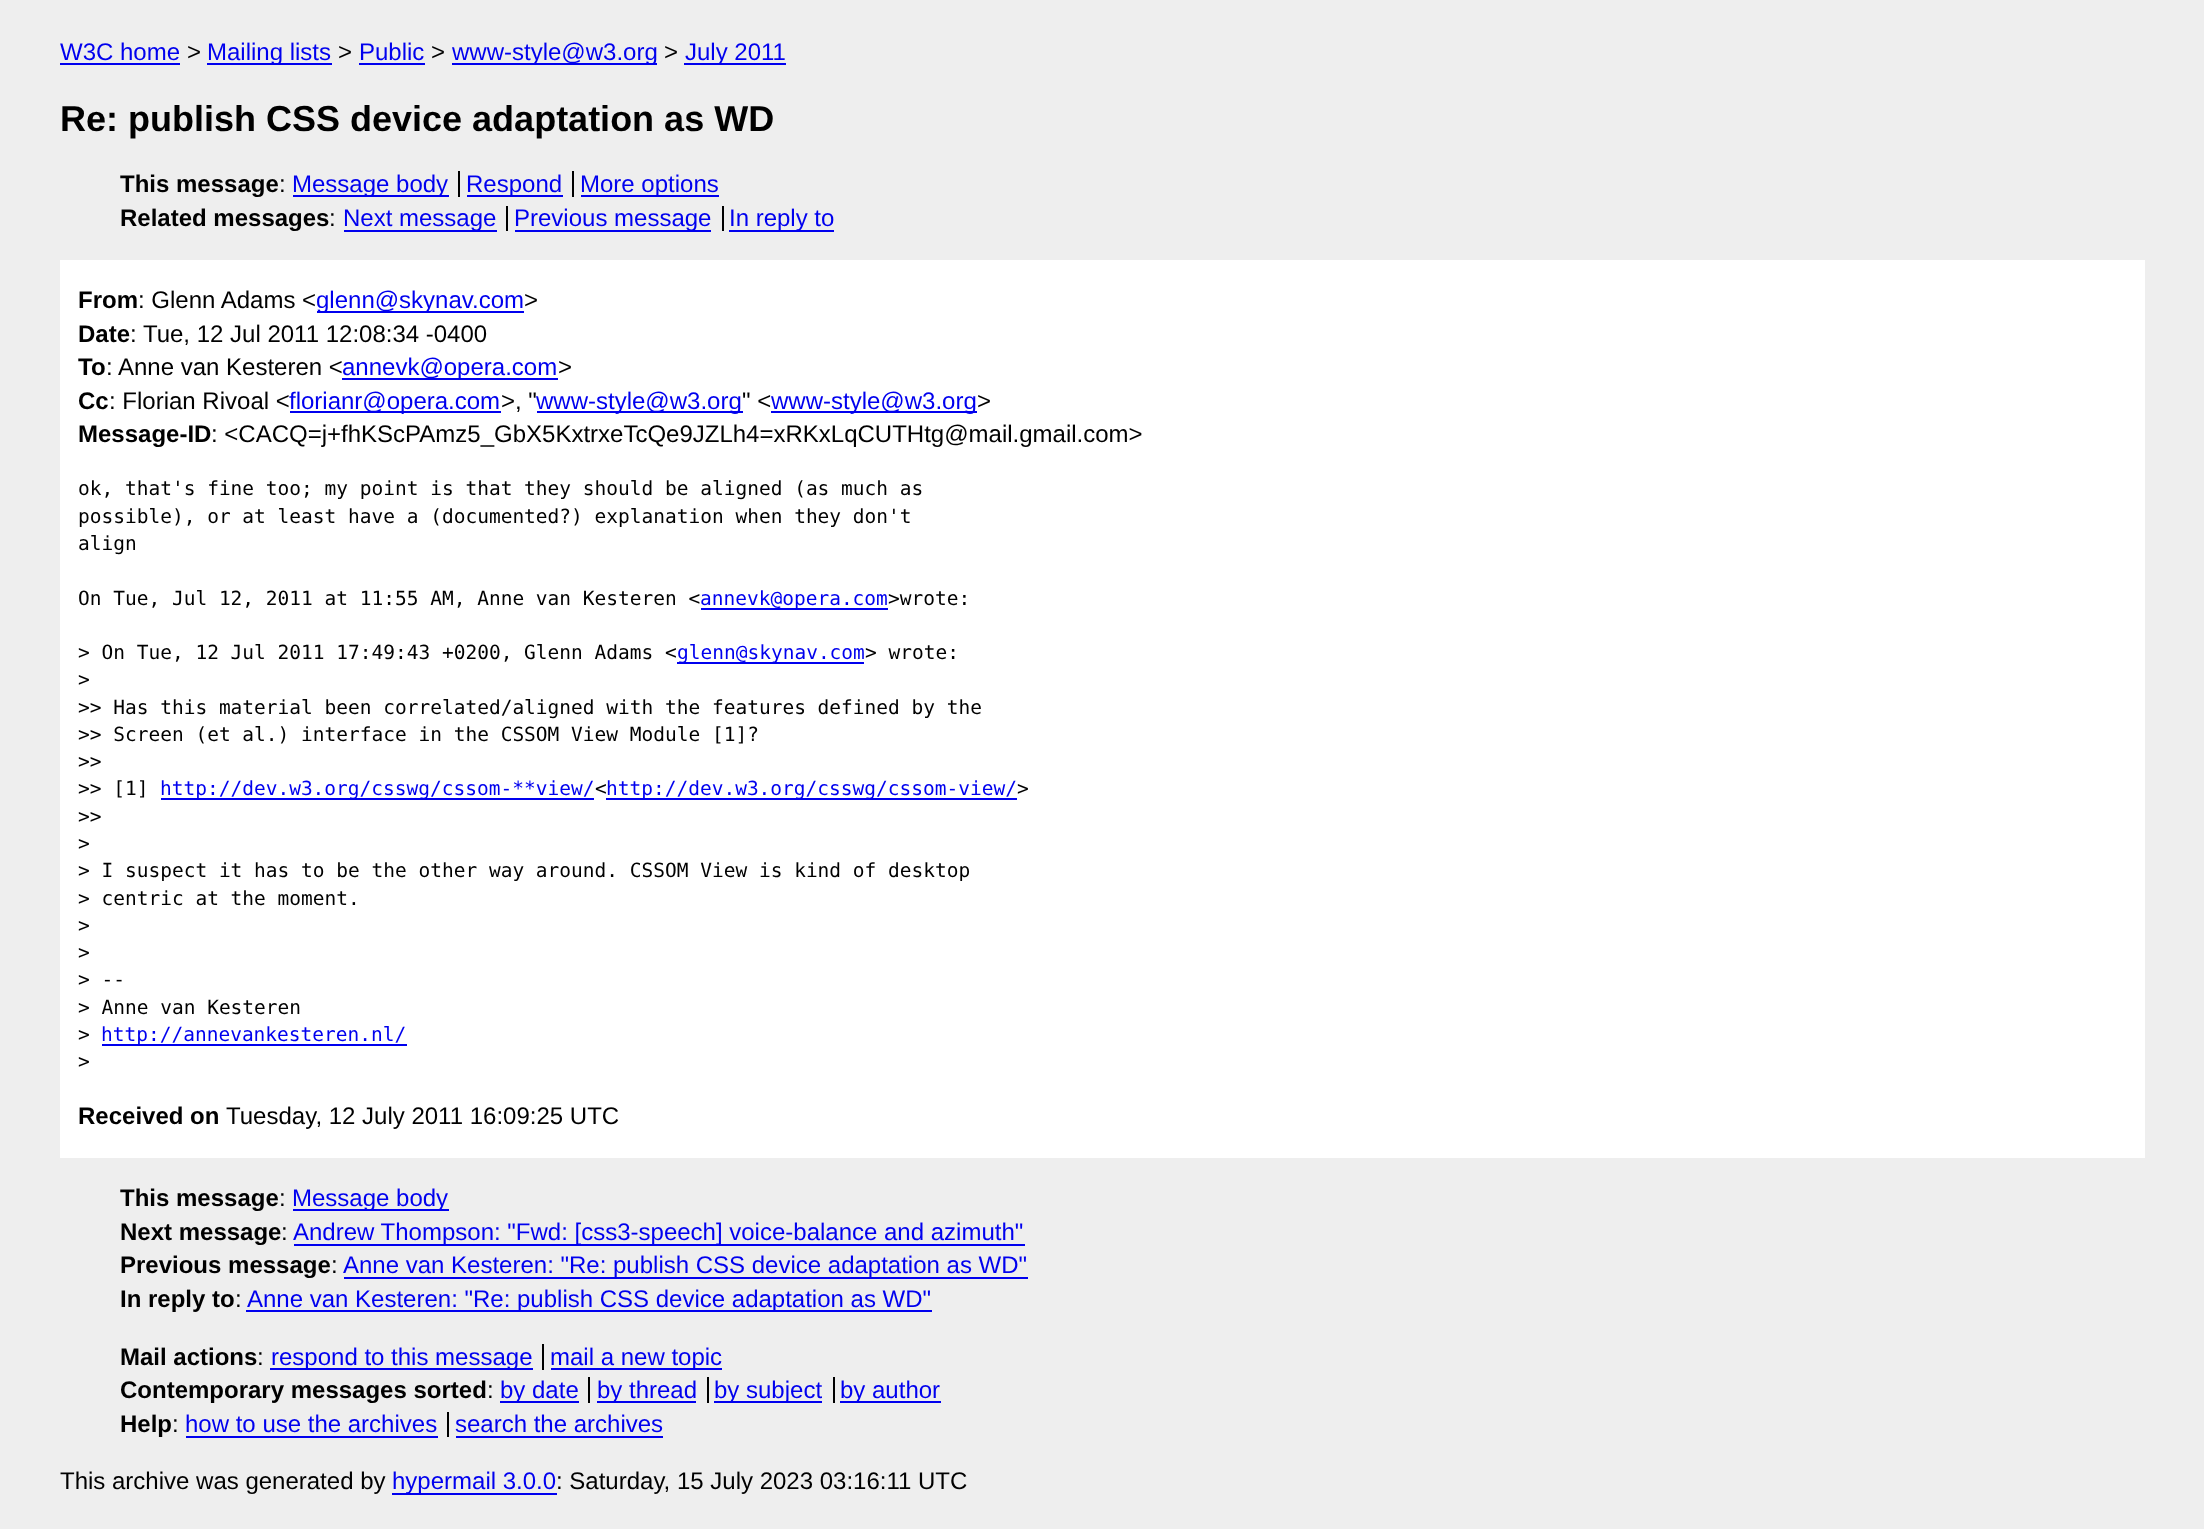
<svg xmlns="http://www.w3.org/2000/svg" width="2204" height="1529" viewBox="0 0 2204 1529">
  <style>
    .t1 { font: 24px Liberation Sans; fill: #00e; }
    .t2 { font: 24px Liberation Sans; fill: #000; }
    .t3 { font: bold 36px Liberation Sans; fill: #000; }
    .t4 { font: bold 24px Liberation Sans; fill: #000; }
    .t5 { font: 19.5px DejaVu Sans Mono; fill: #000; }
    .t6 { font: 19.5px DejaVu Sans Mono; fill: #00e; }
  </style>
  <rect width="100%" height="100%" fill="#eee"/>
  <text x="60" y="60" class="t1">W3C home</text>
  <rect x="60" y="63" width="120" height="2" fill="#00e"/>
  <text x="187" y="60" class="t2">&gt;</text>
  <rect x="207" y="63" width="125" height="2" fill="#00e"/>
  <text x="207" y="60" class="t1">Mailing lists</text>
  <text x="338" y="60" class="t2">&gt;</text>
  <text x="359" y="60" class="t1">Public</text>
  <rect x="359" y="63" width="66" height="2" fill="#00e"/>
  <text x="431" y="60" class="t2">&gt;</text>
  <rect x="452" y="63" width="205" height="2" fill="#00e"/>
  <text x="452" y="60" class="t1">www-style@w3.org</text>
  <text x="664" y="60" class="t2">&gt;</text>
  <rect x="684" y="63" width="102" height="2" fill="#00e"/>
  <text x="685" y="60" class="t1">July 2011</text>
  <text x="60" y="131" class="t3">Re: publish CSS device adaptation as WD</text>
  <text x="120" y="192" class="t4">This message</text>
  <text x="279" y="192" class="t2">:</text>
  <rect x="293" y="195" width="156" height="2" fill="#00e"/>
  <text x="292" y="192" class="t1">Message body</text>
  <rect x="467" y="195" width="96" height="2" fill="#00e"/>
  <text x="466" y="192" class="t1">Respond</text>
  <rect x="458" y="171" width="2" height="26" fill="#000"/>
  <rect x="581" y="195" width="138" height="2" fill="#00e"/>
  <text x="580" y="192" class="t1">More options</text>
  <rect x="572" y="171" width="2" height="26" fill="#000"/>
  <text x="120" y="226" class="t4">Related messages</text>
  <text x="329" y="226" class="t2">:</text>
  <rect x="344" y="230" width="153" height="2" fill="#00e"/>
  <text x="343" y="226" class="t1">Next message</text>
  <rect x="515" y="230" width="196" height="2" fill="#00e"/>
  <text x="514" y="226" class="t1">Previous message</text>
  <rect x="506" y="206" width="2" height="25" fill="#000"/>
  <rect x="729" y="230" width="105" height="2" fill="#00e"/>
  <text x="729" y="226" class="t1">In reply to</text>
  <rect x="722" y="206" width="2" height="25" fill="#000"/>
  <rect x="60" y="260" width="2085" height="898" fill="#fff"/>
  <text x="78" y="308" class="t4">From</text>
  <text x="138" y="308" class="t2">: Glenn Adams &lt;</text>
  <rect x="317" y="311" width="207" height="2" fill="#00e"/>
  <text x="316" y="308" class="t1">glenn@skynav.com</text>
  <text x="524" y="308" class="t2">&gt;</text>
  <text x="78" y="342" class="t4">Date</text>
  <text x="130" y="342" class="t2">: Tue, 12 Jul 2011 12:08:34 -0400</text>
  <text x="78" y="375" class="t4">To</text>
  <text x="106" y="375" class="t2">: Anne van Kesteren &lt;</text>
  <rect x="342" y="378" width="216" height="2" fill="#00e"/>
  <text x="342" y="375" class="t1">annevk@opera.com</text>
  <text x="558" y="375" class="t2">&gt;</text>
  <text x="78" y="409" class="t4">Cc</text>
  <text x="109" y="409" class="t2">: Florian Rivoal &lt;</text>
  <rect x="290" y="411" width="211" height="2" fill="#00e"/>
  <text x="289" y="409" class="t1">florianr@opera.com</text>
  <text x="501" y="409" class="t2">&gt;, "</text>
  <rect x="537" y="411" width="206" height="2" fill="#00e"/>
  <text x="536" y="409" class="t1">www-style@w3.org</text>
  <text x="742" y="409" class="t2">" &lt;</text>
  <rect x="771" y="411" width="206" height="2" fill="#00e"/>
  <text x="771" y="409" class="t1">www-style@w3.org</text>
  <text x="977" y="409" class="t2">&gt;</text>
  <text x="78" y="442" class="t4">Message-ID</text>
  <text x="211" y="442" class="t2">: &lt;CACQ=j+fhKScPAmz5_GbX5KxtrxeTcQe9JZLh4=xRKxLqCUTHtg@mail.gmail.com&gt;</text>
  <text x="78" y="495" class="t5">ok, that's fine too; my point is that they should be aligned (as much as</text>
  <text x="78" y="523" class="t5">possible), or at least have a (documented?) explanation when they don't</text>
  <text x="78" y="550" class="t5">align</text>
  <text x="78" y="605" class="t5">On Tue, Jul 12, 2011 at 11:55 AM, Anne van Kesteren &lt;</text>
  <rect x="701" y="608" width="187" height="2" fill="#00e"/>
  <text x="700" y="605" class="t6">annevk@opera.com</text>
  <text x="888" y="605" class="t5">&gt;wrote:</text>
  <text x="78" y="659" class="t5">&gt; On Tue, 12 Jul 2011 17:49:43 +0200, Glenn Adams &lt;</text>
  <rect x="677" y="662" width="187" height="2" fill="#00e"/>
  <text x="677" y="659" class="t6">glenn@skynav.com</text>
  <text x="865" y="659" class="t5">&gt; wrote:</text>
  <text x="78" y="686" class="t5">&gt;</text>
  <text x="78" y="714" class="t5">&gt;&gt; Has this material been correlated/aligned with the features defined by the</text>
  <text x="78" y="741" class="t5">&gt;&gt; Screen (et al.) interface in the CSSOM View Module [1]?</text>
  <text x="78" y="768" class="t5">&gt;&gt;</text>
  <text x="78" y="795" class="t5">&gt;&gt; [1]</text>
  <rect x="161" y="798" width="433" height="2" fill="#00e"/>
  <text x="160" y="795" class="t6">http://dev.w3.org/csswg/cssom-**view/</text>
  <text x="595" y="795" class="t5">&lt;</text>
  <rect x="606" y="798" width="411" height="2" fill="#00e"/>
  <text x="606" y="795" class="t6">http://dev.w3.org/csswg/cssom-view/</text>
  <text x="1017" y="795" class="t5">&gt;</text>
  <text x="78" y="823" class="t5">&gt;&gt;</text>
  <text x="78" y="850" class="t5">&gt;</text>
  <text x="78" y="877" class="t5">&gt; I suspect it has to be the other way around. CSSOM View is kind of desktop</text>
  <text x="78" y="905" class="t5">&gt; centric at the moment.</text>
  <text x="78" y="932" class="t5">&gt;</text>
  <text x="78" y="959" class="t5">&gt;</text>
  <text x="78" y="986" class="t5">&gt; --</text>
  <text x="78" y="1014" class="t5">&gt; Anne van Kesteren</text>
  <text x="78" y="1041" class="t5">&gt;</text>
  <rect x="102" y="1044" width="305" height="2" fill="#00e"/>
  <text x="101" y="1041" class="t6">http://annevankesteren.nl/</text>
  <text x="78" y="1068" class="t5">&gt;</text>
  <text x="78" y="1124" class="t4">Received on</text>
  <text x="226" y="1124" class="t2">Tuesday, 12 July 2011 16:09:25 UTC</text>
  <text x="120" y="1206" class="t4">This message</text>
  <text x="279" y="1206" class="t2">:</text>
  <rect x="293" y="1209" width="156" height="2" fill="#00e"/>
  <text x="292" y="1206" class="t1">Message body</text>
  <text x="120" y="1240" class="t4">Next message</text>
  <text x="281" y="1240" class="t2">:</text>
  <rect x="294" y="1244" width="731" height="2" fill="#00e"/>
  <text x="293" y="1240" class="t1">Andrew Thompson: "Fwd: [css3-speech] voice-balance and azimuth"</text>
  <text x="120" y="1273" class="t4">Previous message</text>
  <text x="331" y="1273" class="t2">:</text>
  <rect x="344" y="1277" width="684" height="2" fill="#00e"/>
  <text x="343" y="1273" class="t1">Anne van Kesteren: "Re: publish CSS device adaptation as WD"</text>
  <text x="120" y="1307" class="t4">In reply to</text>
  <text x="235" y="1307" class="t2">:</text>
  <rect x="246" y="1310" width="686" height="2" fill="#00e"/>
  <text x="247" y="1307" class="t1">Anne van Kesteren: "Re: publish CSS device adaptation as WD"</text>
  <text x="120" y="1365" class="t4">Mail actions</text>
  <text x="257" y="1365" class="t2">:</text>
  <rect x="270" y="1368" width="263" height="2" fill="#00e"/>
  <text x="271" y="1365" class="t1">respond to this message</text>
  <rect x="551" y="1368" width="171" height="2" fill="#00e"/>
  <text x="550" y="1365" class="t1">mail a new topic</text>
  <rect x="542" y="1344" width="2" height="26" fill="#000"/>
  <text x="120" y="1398" class="t4">Contemporary messages sorted</text>
  <text x="487" y="1398" class="t2">:</text>
  <rect x="500" y="1401" width="79" height="2" fill="#00e"/>
  <text x="500" y="1398" class="t1">by date</text>
  <rect x="597" y="1401" width="99" height="2" fill="#00e"/>
  <text x="597" y="1398" class="t1">by thread</text>
  <rect x="588" y="1377" width="2" height="26" fill="#000"/>
  <rect x="714" y="1401" width="108" height="2" fill="#00e"/>
  <text x="714" y="1398" class="t1">by subject</text>
  <rect x="707" y="1377" width="2" height="26" fill="#000"/>
  <rect x="840" y="1401" width="101" height="2" fill="#00e"/>
  <text x="840" y="1398" class="t1">by author</text>
  <rect x="833" y="1377" width="2" height="26" fill="#000"/>
  <text x="120" y="1432" class="t4">Help</text>
  <text x="172" y="1432" class="t2">:</text>
  <text x="185" y="1432" class="t1">how to use the archives</text>
  <rect x="186" y="1436" width="252" height="2" fill="#00e"/>
  <text x="455" y="1432" class="t1">search the archives</text>
  <rect x="447" y="1412" width="2" height="25" fill="#000"/>
  <rect x="456" y="1436" width="207" height="2" fill="#00e"/>
  <text x="60" y="1489" class="t2">This archive was generated by</text>
  <rect x="392" y="1493" width="165" height="2" fill="#00e"/>
  <text x="392" y="1489" class="t1">hypermail 3.0.0</text>
  <text x="556" y="1489" class="t2">: Saturday, 15 July 2023 03:16:11 UTC</text>
</svg>
